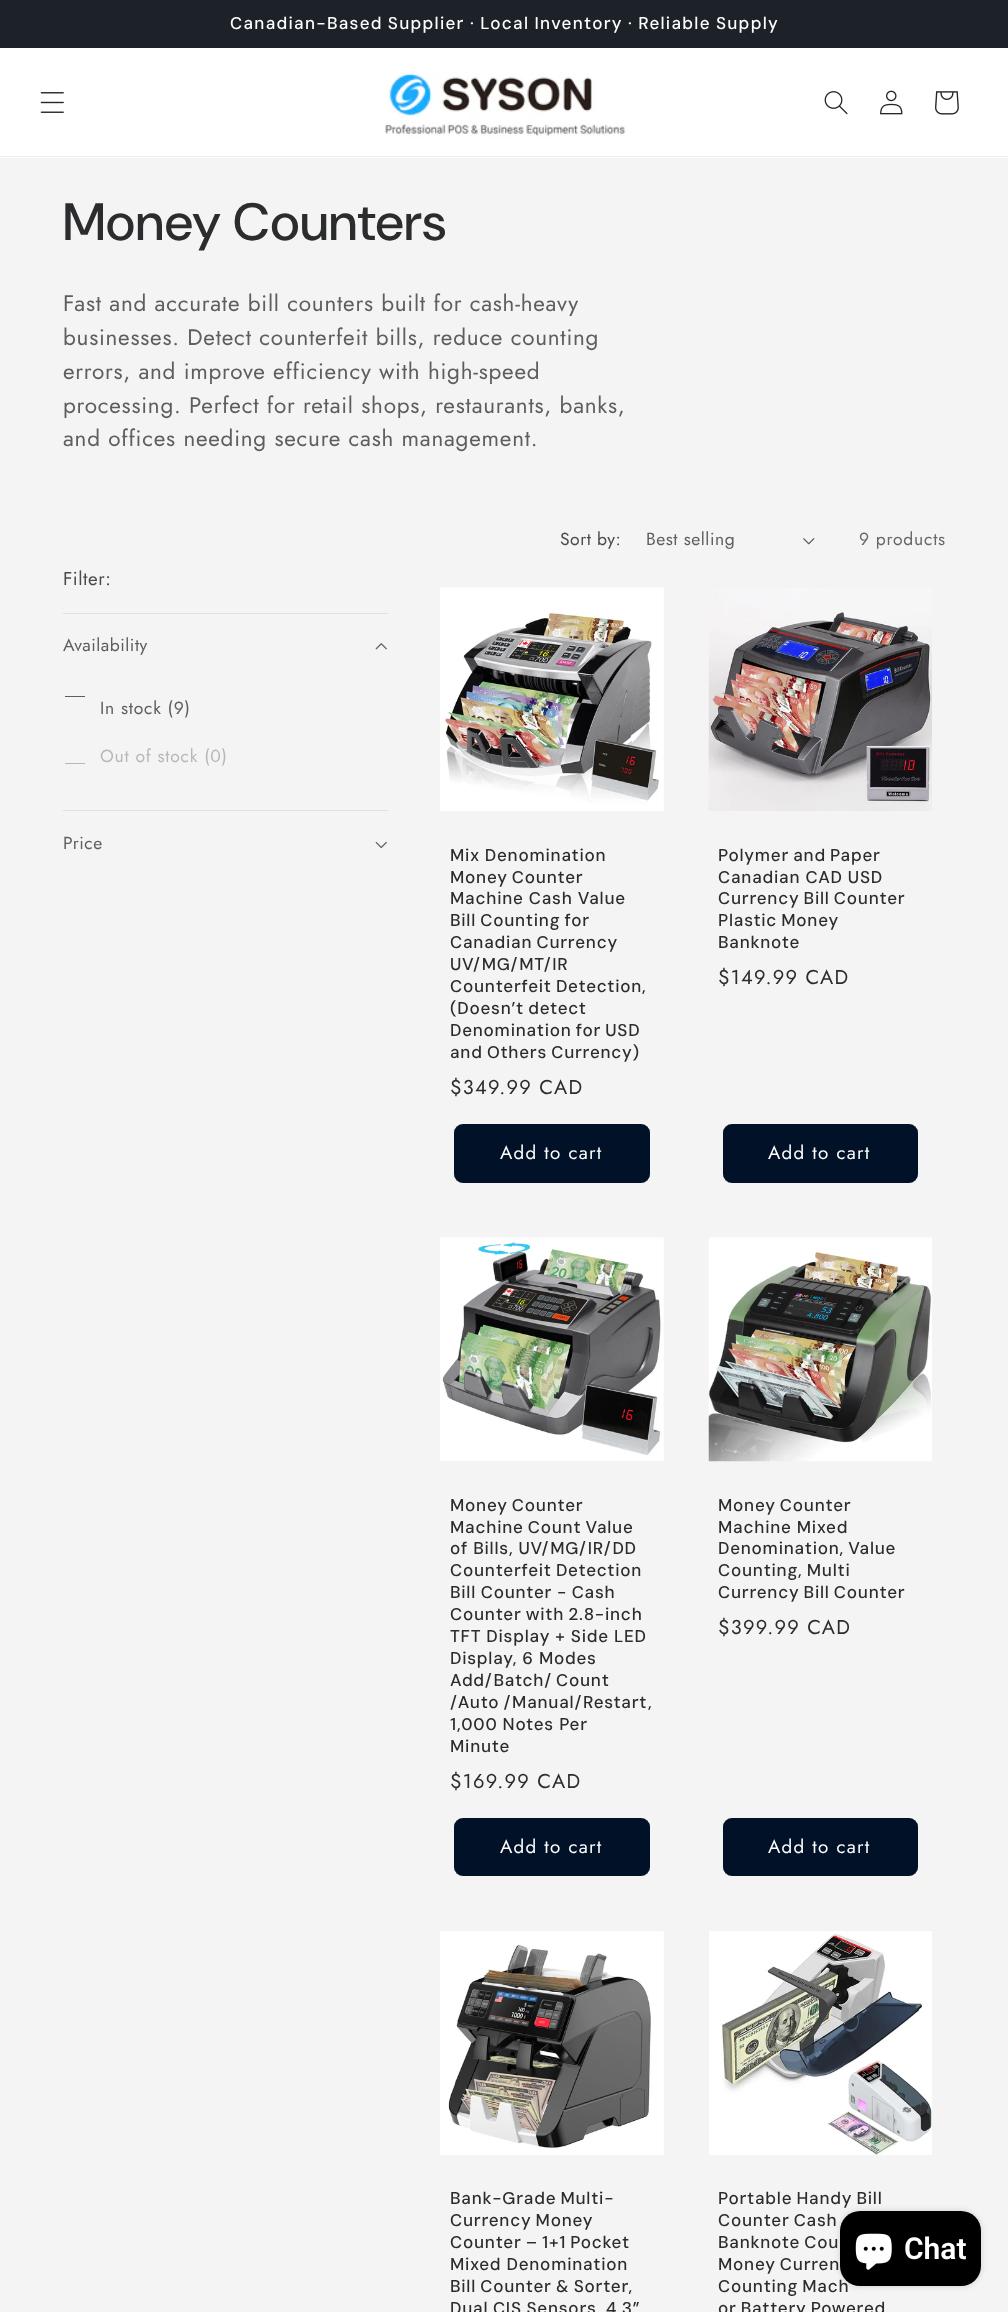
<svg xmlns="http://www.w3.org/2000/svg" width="1008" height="2312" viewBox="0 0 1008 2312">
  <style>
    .t1 { font: 500 17.05px 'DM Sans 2'; letter-spacing: 1.25px; fill: #fff; }
    .t2 { font: 500 52.5px DM Sans; letter-spacing: 0.75px; fill: #2b2c2d; }
    .t3 { font: 22.5px Jost; letter-spacing: 0.75px; fill: #5d5e5f; }
    .t4 { font: 17.5px Jost; letter-spacing: 0.5px; fill: #494a4b; }
    .t5 { font: 17.5px Jost; letter-spacing: 0.5px; fill: #5d5e5f; }
    .t6 { font: 17.5px Jost; letter-spacing: 0.75px; fill: #676869; }
    .t7 { font: 18.75px Jost; letter-spacing: 0.5px; fill: #494a4b; }
    .t8 { font: 17.5px Jost; letter-spacing: 0.75px; fill: #5d5e5f; }
    .t9 { font: 17.5px Jost; letter-spacing: 0.75px; fill: #b8b8b8; }
    .t10 { font: 500 17.05px 'DM Sans 2'; letter-spacing: 0.75px; fill: #2b2c2d; }
    .t11 { font: 20px Jost; letter-spacing: 1.25px; fill: #2b2c2d; }
    .t12 { font: 18.75px Jost; letter-spacing: 1.25px; fill: #fff; }
    .t13 { font: 600 30px Roboto; fill: #fff; }
  </style>
  <defs>
    <clipPath id="clip1"><rect x="65" y="696" width="20" height="20"/></clipPath>
    <clipPath id="clip2"><rect x="65" y="744" width="20" height="20"/></clipPath>
  </defs>
  <rect width="100%" height="100%" fill="#f4f4f4"/>
  <rect x="0" y="0" width="1008" height="48" fill="#1c2228"/>
  <text x="230" y="29" word-spacing="-0.5" class="t1">Canadian-Based Supplier · Local Inventory · Reliable Supply</text>
  <rect x="0" y="48" width="1008" height="110" fill="#fff"/>
  <rect x="0" y="156" width="1008" height="1" fill="#eee"/>
  <image x="40" y="92" width="24" height="21" href="images/1.png"/>
  <image x="385" y="72" width="241" height="65" href="images/2.png"/>
  <image x="824" y="91" width="24" height="24" href="images/3.png"/>
  <image x="880" y="90" width="23" height="25" href="images/4.png"/>
  <image x="935" y="91" width="24" height="24" href="images/5.png"/>
  <text x="63" y="240" class="t2">Money Counters</text>
  <text x="63" y="311" class="t3">Fast and accurate bill counters built for cash-heavy</text>
  <text x="63" y="345" class="t3">businesses. Detect counterfeit bills, reduce counting</text>
  <text x="63" y="379" class="t3">errors, and improve efficiency with high-speed</text>
  <text x="63" y="413" class="t3">processing. Perfect for retail shops, restaurants, banks,</text>
  <text x="63" y="446" class="t3">and offices needing secure cash management.</text>
  <text x="560" y="545" class="t4">Sort by:</text>
  <text x="646" y="545" class="t5">Best selling</text>
  <image x="803" y="538" width="12" height="7" href="images/6.png"/>
  <text x="859" y="545" class="t6">9 products</text>
  <text x="63" y="585" class="t7">Filter:</text>
  <rect x="63" y="613" width="325" height="1" fill="#e0e0e0"/>
  <text x="63" y="651" class="t5">Availability</text>
  <image x="375" y="643" width="12" height="7" href="images/7.png"/>
  <g clip-path="url(#clip1)">
    <rect x="64.5" y="696.5" width="21" height="20" fill="none" stroke="#5d5e5f"/>
  </g>
  <text x="100" y="714" class="t8">In stock (9)</text>
  <g clip-path="url(#clip2)">
    <rect x="64.5" y="743.5" width="21" height="20" fill="none" stroke="#b8b8b8"/>
  </g>
  <text x="100" y="762" class="t9">Out of stock (0)</text>
  <rect x="63" y="810" width="325" height="1" fill="#e0e0e0"/>
  <text x="63" y="849" class="t5">Price</text>
  <image x="375" y="841" width="12" height="8" href="images/8.png"/>
  <image x="440" y="587" width="224" height="224" href="images/9.png"/>
  <text x="450" y="861" class="t10">Mix Denomination</text>
  <text x="450" y="883" word-spacing="-1" class="t10">Money Counter</text>
  <text x="450" y="904" class="t10">Machine Cash Value</text>
  <text x="450" y="926" word-spacing="-1" class="t10">Bill Counting for</text>
  <text x="450" y="948" word-spacing="-1" class="t10">Canadian Currency</text>
  <text x="450" y="970" class="t10">UV/MG/MT/IR</text>
  <text x="450" y="992" word-spacing="-1" class="t10">Counterfeit Detection,</text>
  <text x="450" y="1014" word-spacing="-1" class="t10">(Doesn’t detect</text>
  <text x="450" y="1036" word-spacing="-1" class="t10">Denomination for USD</text>
  <text x="450" y="1058" word-spacing="-1" class="t10">and Others Currency)</text>
  <text x="450" y="1094" class="t11">$349.99 CAD</text>
  <rect x="454" y="1124" width="196" height="59" rx="9" fill="#001128"/>
  <rect x="454.5" y="1124.5" width="195" height="58" rx="8.5" fill="none" stroke="#f4f4f4"/>
  <rect x="455" y="1125" width="194" height="57" rx="8" fill="none" stroke="#001128" stroke-width="2"/>
  <text x="500" y="1159" class="t12">Add to cart</text>
  <image x="708" y="588" width="224" height="223" href="images/10.png"/>
  <text x="718" y="861" word-spacing="-1" class="t10">Polymer and Paper</text>
  <text x="718" y="883" class="t10">Canadian CAD USD</text>
  <text x="718" y="904" word-spacing="-1" class="t10">Currency Bill Counter</text>
  <text x="718" y="926" word-spacing="-1" class="t10">Plastic Money</text>
  <text x="718" y="948" class="t10">Banknote</text>
  <text x="718" y="984" class="t11">$149.99 CAD</text>
  <rect x="723" y="1124" width="195" height="59" rx="9" fill="#001128"/>
  <rect x="723.5" y="1124.5" width="194" height="58" rx="8.5" fill="none" stroke="#f4f4f4"/>
  <rect x="724" y="1125" width="193" height="57" rx="8" fill="none" stroke="#001128" stroke-width="2"/>
  <text x="768" y="1159" class="t12">Add to cart</text>
  <image x="440" y="1237" width="224" height="224" href="images/11.png"/>
  <text x="450" y="1511" word-spacing="-1" class="t10">Money Counter</text>
  <text x="450" y="1533" word-spacing="-1" class="t10">Machine Count Value</text>
  <text x="450" y="1554" class="t10">of Bills, UV/MG/IR/DD</text>
  <text x="450" y="1576" word-spacing="-1" class="t10">Counterfeit Detection</text>
  <text x="450" y="1598" word-spacing="-0.5" class="t10">Bill Counter - Cash</text>
  <text x="450" y="1620" word-spacing="-1" class="t10">Counter with 2.8-inch</text>
  <text x="450" y="1642" class="t10">TFT Display + Side LED</text>
  <text x="450" y="1664" class="t10">Display, 6 Modes</text>
  <text x="450" y="1686" word-spacing="-1" class="t10">Add/Batch/ Count</text>
  <text x="450" y="1708" word-spacing="-1" class="t10">/Auto /Manual/Restart,</text>
  <text x="450" y="1730" class="t10">1,000 Notes Per</text>
  <text x="450" y="1752" class="t10">Minute</text>
  <text x="450" y="1788" class="t11">$169.99 CAD</text>
  <rect x="454" y="1818" width="196" height="58" rx="9" fill="#001128"/>
  <rect x="454.5" y="1818.5" width="195" height="57" rx="8.5" fill="none" stroke="#f4f4f4"/>
  <rect x="455" y="1819" width="194" height="56" rx="8" fill="none" stroke="#001128" stroke-width="2"/>
  <text x="500" y="1853" class="t12">Add to cart</text>
  <image x="708" y="1237" width="224" height="225" href="images/12.png"/>
  <text x="718" y="1511" word-spacing="-1" class="t10">Money Counter</text>
  <text x="718" y="1533" class="t10">Machine Mixed</text>
  <text x="718" y="1554" word-spacing="-1" class="t10">Denomination, Value</text>
  <text x="718" y="1576" word-spacing="-1" class="t10">Counting, Multi</text>
  <text x="718" y="1598" word-spacing="-1" class="t10">Currency Bill Counter</text>
  <text x="718" y="1634" class="t11">$399.99 CAD</text>
  <rect x="723" y="1818" width="195" height="58" rx="9" fill="#001128"/>
  <rect x="723.5" y="1818.5" width="194" height="57" rx="8.5" fill="none" stroke="#f4f4f4"/>
  <rect x="724" y="1819" width="193" height="56" rx="8" fill="none" stroke="#001128" stroke-width="2"/>
  <text x="768" y="1853" class="t12">Add to cart</text>
  <image x="440" y="1931" width="224" height="224" href="images/13.png"/>
  <text x="450" y="2204" word-spacing="-1" class="t10">Bank-Grade Multi-</text>
  <text x="450" y="2226" word-spacing="-1" class="t10">Currency Money</text>
  <text x="450" y="2248" word-spacing="-1" class="t10">Counter – 1+1 Pocket</text>
  <text x="450" y="2270" class="t10">Mixed Denomination</text>
  <text x="450" y="2292" word-spacing="-1" class="t10">Bill Counter &amp; Sorter,</text>
  <text x="450" y="2314" word-spacing="-0.5" class="t10">Dual CIS Sensors, 4.3”</text>
  <image x="709" y="1931" width="223" height="224" href="images/14.png"/>
  <text x="718" y="2204" word-spacing="-1" class="t10">Portable Handy Bill</text>
  <text x="718" y="2226" word-spacing="-1" class="t10">Counter Cash</text>
  <text x="718" y="2248" word-spacing="-1" class="t10">Banknote Cou</text>
  <text x="718" y="2270" word-spacing="-1" class="t10">Money Curren</text>
  <text x="718" y="2292" word-spacing="-1" class="t10">Counting Mach</text>
  <text x="718" y="2314" word-spacing="-1" class="t10">or Battery Powered</text>
  <rect x="840" y="2211" width="141" height="75" rx="20" fill="#00000026" filter="blur(3px)"/>
  <rect x="840" y="2211" width="141" height="75" rx="20" fill="#000"/>
  <image x="855" y="2233" width="37" height="37" href="images/15.png"/>
  <text x="904" y="2259" class="t13">Chat</text>
</svg>
